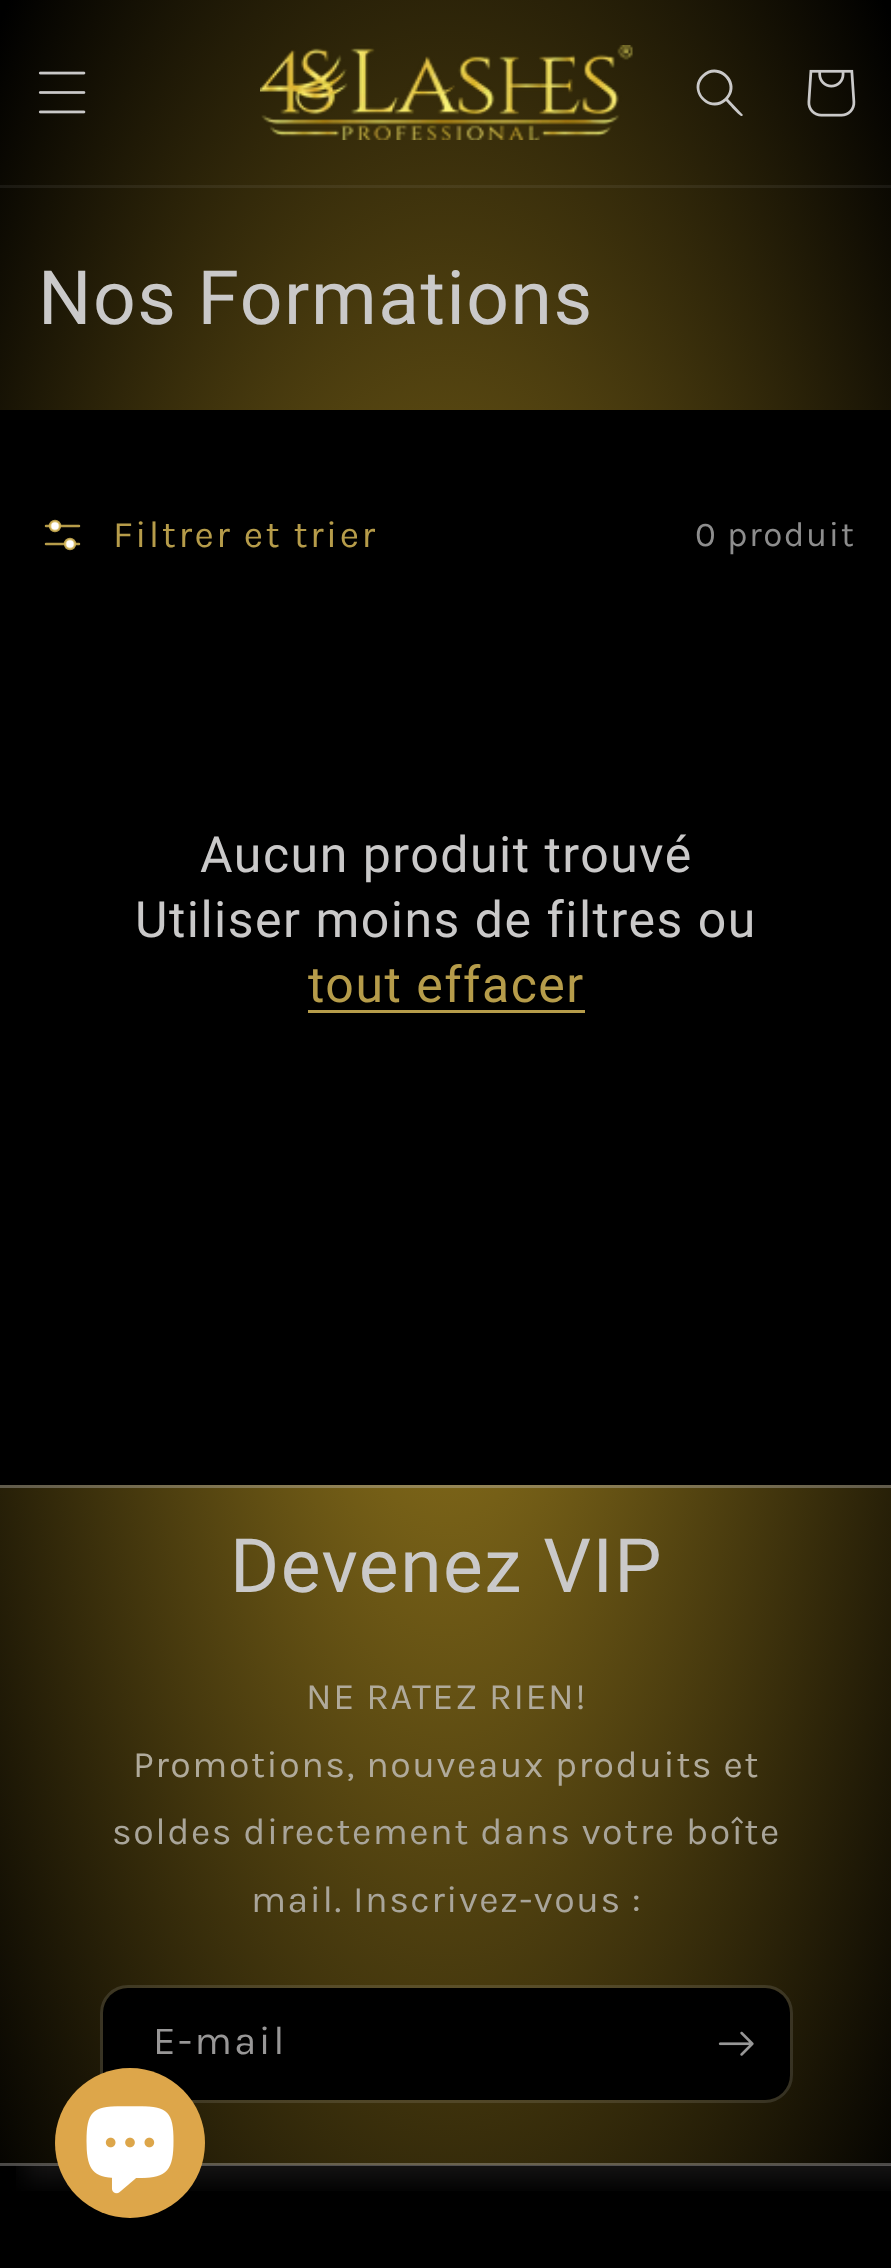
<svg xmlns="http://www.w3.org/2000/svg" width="891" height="2268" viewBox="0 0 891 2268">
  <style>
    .t1 { font: 75px Roboto; letter-spacing: 1.5px; fill: #cac9c9; }
    .t2 { font: 37.5px Karla; letter-spacing: 2.5px; fill: #b69c4a; }
    .t3 { font: 35px Karla; letter-spacing: 1.5px; fill: #8d8d8d; }
    .t4 { font: 50px Roboto; letter-spacing: 1.5px; fill: #cac9c9; }
    .t5 { font: 50px Roboto; letter-spacing: 1.5px; fill: #b69c4a; }
    .t6 { font: 37.5px Karla; letter-spacing: 1.5px; fill: #b0aa9b; }
    .t7 { font: 37.5px Karla; letter-spacing: 1.5px; fill: #a9a59a; }
    .t8 { font: 40px Karla; letter-spacing: 2.5px; fill: #989797; }
  </style>
  <defs>
    <radialGradient id="g1" gradientUnits="userSpaceOnUse" cx="0" cy="0" r="1" gradientTransform="matrix(631 0 0 1605 446 1135)"><stop offset="0.01" stop-color="#997c1e"/><stop offset="0.99" stop-color="#000"/></radialGradient>
    <radialGradient id="g2" gradientUnits="userSpaceOnUse" cx="0" cy="0" r="1" gradientTransform="matrix(631 0 0 1605 446 1135)"><stop offset="0.01" stop-color="#9d822c"/><stop offset="0.99" stop-color="#101010"/></radialGradient>
    <radialGradient id="g3" gradientUnits="userSpaceOnUse" cx="0" cy="0" r="1" gradientTransform="matrix(631 0 0 1605 446 1135)"><stop offset="0.01" stop-color="#aa975a"/><stop offset="0.99" stop-color="#474646"/></radialGradient>
    <clipPath id="clip1"><rect x="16" y="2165" width="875" height="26"/></clipPath>
  </defs>
  <rect width="100%" height="100%" fill="#000"/>
  <rect x="0" y="2165" width="891" height="1" fill="#474646"/>
  <rect x="0" y="0" width="891" height="185" fill="url(#g1)"/>
  <rect x="0" y="185" width="891" height="3" fill="url(#g2)"/>
  <image x="38" y="71" width="48" height="43" href="images/1.png"/>
  <image x="260" y="45" width="373" height="95" href="images/2.png"/>
  <path d="M725 98C711 112 690 91 704 77C718 63 739 84 725 98ZM726 101C709 116 686 90 702 75C718 59 743 82 728 99L743 115L742 116C740 117 728 103 726 101Z" fill="#cac9c9" fill-rule="evenodd"/>
  <image x="807" y="69" width="49" height="48" href="images/3.png"/>
  <rect x="0" y="188" width="891" height="222" fill="url(#g1)"/>
  <text x="38" y="324" class="t1">Nos Formations</text>
  <path d="M79 526H46M79 544H46" fill="none" stroke="#b69c4a" stroke-width="2.5" stroke-linecap="round"/>
  <circle cx="70" cy="544" r="5" fill="#fff" stroke="#d6b757d9" stroke-width="2.5"/>
  <circle cx="55" cy="526" r="5" fill="#fff" stroke="#d6b757d9" stroke-width="2.5"/>
  <text x="113" y="547" class="t2">Filtrer et trier</text>
  <text x="695" y="546" class="t3">0 produit</text>
  <text x="200" y="872" class="t4">Aucun produit trouvé</text>
  <text x="135" y="937" class="t4">Utiliser moins de filtres ou</text>
  <text x="308" y="1002" class="t5">tout effacer</text>
  <rect x="308" y="1010" width="277" height="3" fill="#b69c4a"/>
  <rect x="0" y="1488" width="891" height="675" fill="url(#g1)"/>
  <rect x="0" y="2163" width="891" height="2" fill="url(#g3)"/>
  <rect x="0" y="1485" width="891" height="3" fill="url(#g3)"/>
  <g clip-path="url(#clip1)">
    <rect x="25" y="1500" width="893" height="680" fill="#cac9c91a" filter="blur(12.5px)"/>
  </g>
  <text x="230" y="1592" class="t1">Devenez VIP</text>
  <text x="306" y="1709" class="t6">NE RATEZ RIEN!</text>
  <text x="133" y="1777" class="t6">Promotions, nouveaux produits et</text>
  <text x="112" y="1844" class="t7">soldes directement dans votre boîte</text>
  <text x="251" y="1912" class="t7">mail. Inscrivez-vous :</text>
  <rect x="103" y="1988" width="687" height="112" rx="25" fill="#000"/>
  <rect x="101.5" y="1986.5" width="690" height="115" rx="26.5" fill="none" stroke="#cac9c926" stroke-width="3"/>
  <text x="153" y="2054" class="t8">E-mail</text>
  <image x="718" y="2031" width="36" height="25" href="images/4.png"/>
  <circle cx="130" cy="2143" r="75" fill="#dda64a"/>
  <image x="86" y="2106" width="88" height="88" href="images/5.png"/>
</svg>
